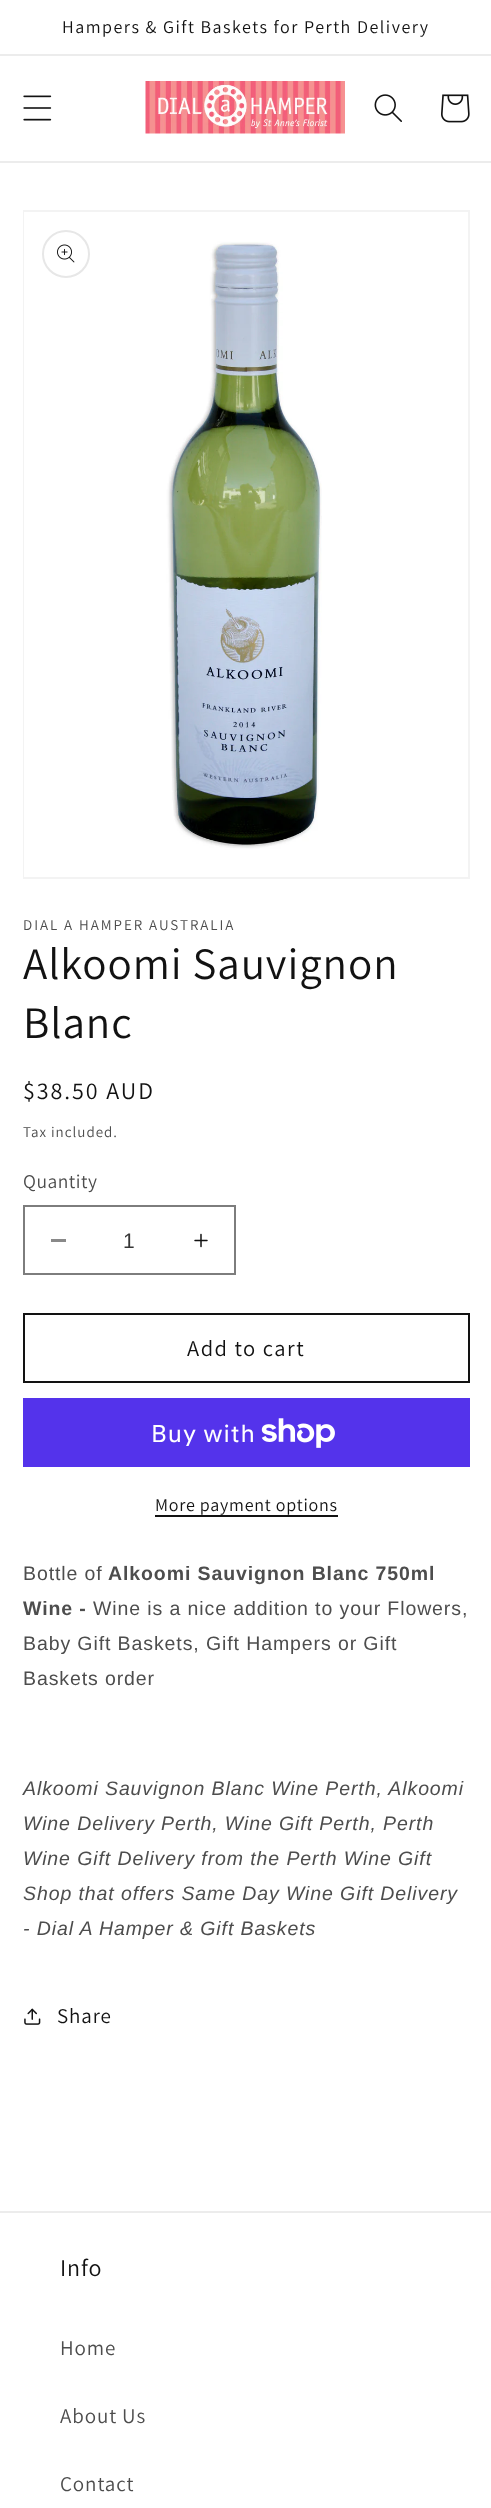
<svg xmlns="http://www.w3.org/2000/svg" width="491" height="2508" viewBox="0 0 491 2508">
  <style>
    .t1 { font: 18px Assistant; letter-spacing: 1.5px; fill: #121212; }
    .t2 { font: 15px Assistant; letter-spacing: 1.95px; fill: #4d4d4d; }
    .t3 { font: 45px Assistant; letter-spacing: 0.9px; fill: #121212; }
    .t4 { font: 24px Assistant; letter-spacing: 1.95px; fill: #121212; }
    .t5 { font: 15px Assistant; letter-spacing: 1px; fill: #4d4d4d; }
    .t6 { font: 19.5px Assistant; letter-spacing: 0.5px; fill: #4d4d4d; }
    .t7 { font: 21px Liberation Sans; fill: #363636; }
    .t8 { font: 22.5px Assistant; letter-spacing: 1.5px; fill: #121212; }
    .t9 { font: 24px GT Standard; letter-spacing: 0.9px; fill: #fff; }
    .t10 { font: 18px Assistant; letter-spacing: 0.75px; fill: #121212; }
    .t11 { font: 19.5px Liberation Sans; letter-spacing: 0.9px; fill: #4d4d4d; }
    .t12 { font: bold 19.5px Liberation Sans; letter-spacing: 0.9px; fill: #4d4d4d; }
    .t13 { font: italic 19.5px Liberation Sans; letter-spacing: 0.9px; fill: #4d4d4d; }
    .t14 { font: 21px Assistant; letter-spacing: 0.9px; fill: #121212; }
    .t15 { font: 24px Assistant; letter-spacing: 0.9px; fill: #121212; }
    .t16 { font: 21px Assistant; letter-spacing: 0.9px; fill: #4d4d4d; }
  </style>
  <rect width="100%" height="100%" fill="#fff"/>
  <rect x="0" y="54" width="491" height="2" fill="#ececec"/>
  <text x="62" y="33" class="t1">Hampers &amp; Gift Baskets for Perth Delivery</text>
  <rect x="0" y="161" width="491" height="2" fill="#ececec"/>
  <image x="23" y="95" width="29" height="26" href="images/1.png"/>
  <image x="145" y="81" width="200" height="53" href="images/2.png"/>
  <image x="374" y="94" width="28" height="28" href="images/3.png"/>
  <image x="441" y="94" width="29" height="29" href="images/4.png"/>
  <rect x="24" y="211" width="445" height="667" fill="none" stroke="#f3f3f3" stroke-width="2"/>
  <image x="24" y="212" width="298" height="665" href="images/5.png"/>
  <circle cx="66" cy="254" r="23" fill="none" stroke="#e7e7e7" stroke-width="2"/>
  <image x="57" y="244" width="18" height="19" href="images/6.png"/>
  <text x="23" y="930" class="t2">DIAL A HAMPER AUSTRALIA</text>
  <text x="23" y="979" class="t3">Alkoomi Sauvignon</text>
  <text x="23" y="1038" class="t3">Blanc</text>
  <text x="23" y="1099" class="t4">$38.50 AUD</text>
  <text x="23" y="1137" class="t5">Tax included.</text>
  <text x="23" y="1188" class="t6">Quantity</text>
  <rect x="51" y="1239" width="15" height="3" fill="#898989"/>
  <image x="194" y="1233" width="14" height="15" href="images/7.png"/>
  <rect x="24" y="1206" width="211" height="68" fill="none" stroke="#7d7d7d" stroke-width="2"/>
  <text x="123" y="1248" class="t7">1</text>
  <rect x="24" y="1314" width="445" height="68" fill="none" stroke="#121212" stroke-width="2"/>
  <text x="187" y="1356" class="t8">Add to cart</text>
  <rect x="23" y="1398" width="447" height="69" fill="#5433eb"/>
  <text x="151" y="1442" class="t9">Buy with</text>
  <image x="261" y="1418" width="74" height="30" href="images/8.png"/>
  <text x="155" y="1511" class="t10">More payment options</text>
  <rect x="155" y="1515" width="183" height="2" fill="#121212"/>
  <text x="23" y="1580" class="t11">Bottle of</text>
  <text x="108" y="1580" class="t12">Alkoomi Sauvignon Blanc 750ml</text>
  <text x="23" y="1615" class="t12">Wine -</text>
  <text x="93" y="1615" class="t11">Wine is a nice addition to your Flowers,</text>
  <text x="23" y="1650" class="t11">Baby Gift Baskets, Gift Hampers or Gift</text>
  <text x="23" y="1685" class="t11">Baskets order</text>
  <text x="23" y="1795" class="t13">Alkoomi Sauvignon Blanc Wine Perth, Alkoomi</text>
  <text x="23" y="1830" class="t13">Wine Delivery Perth, Wine Gift Perth, Perth</text>
  <text x="23" y="1865" class="t13">Wine Gift Delivery from the Perth Wine Gift</text>
  <text x="23" y="1900" class="t13">Shop that offers Same Day Wine Gift Delivery</text>
  <text x="23" y="1935" class="t13">- Dial A Hamper &amp; Gift Baskets</text>
  <image x="24" y="2008" width="17" height="17" href="images/9.png"/>
  <text x="57" y="2023" class="t14">Share</text>
  <rect x="0" y="2211" width="491" height="2" fill="#ececec"/>
  <text x="60" y="2276" class="t15">Info</text>
  <text x="60" y="2355" class="t16">Home</text>
  <text x="60" y="2423" class="t16">About Us</text>
  <text x="60" y="2491" class="t16">Contact</text>
</svg>
